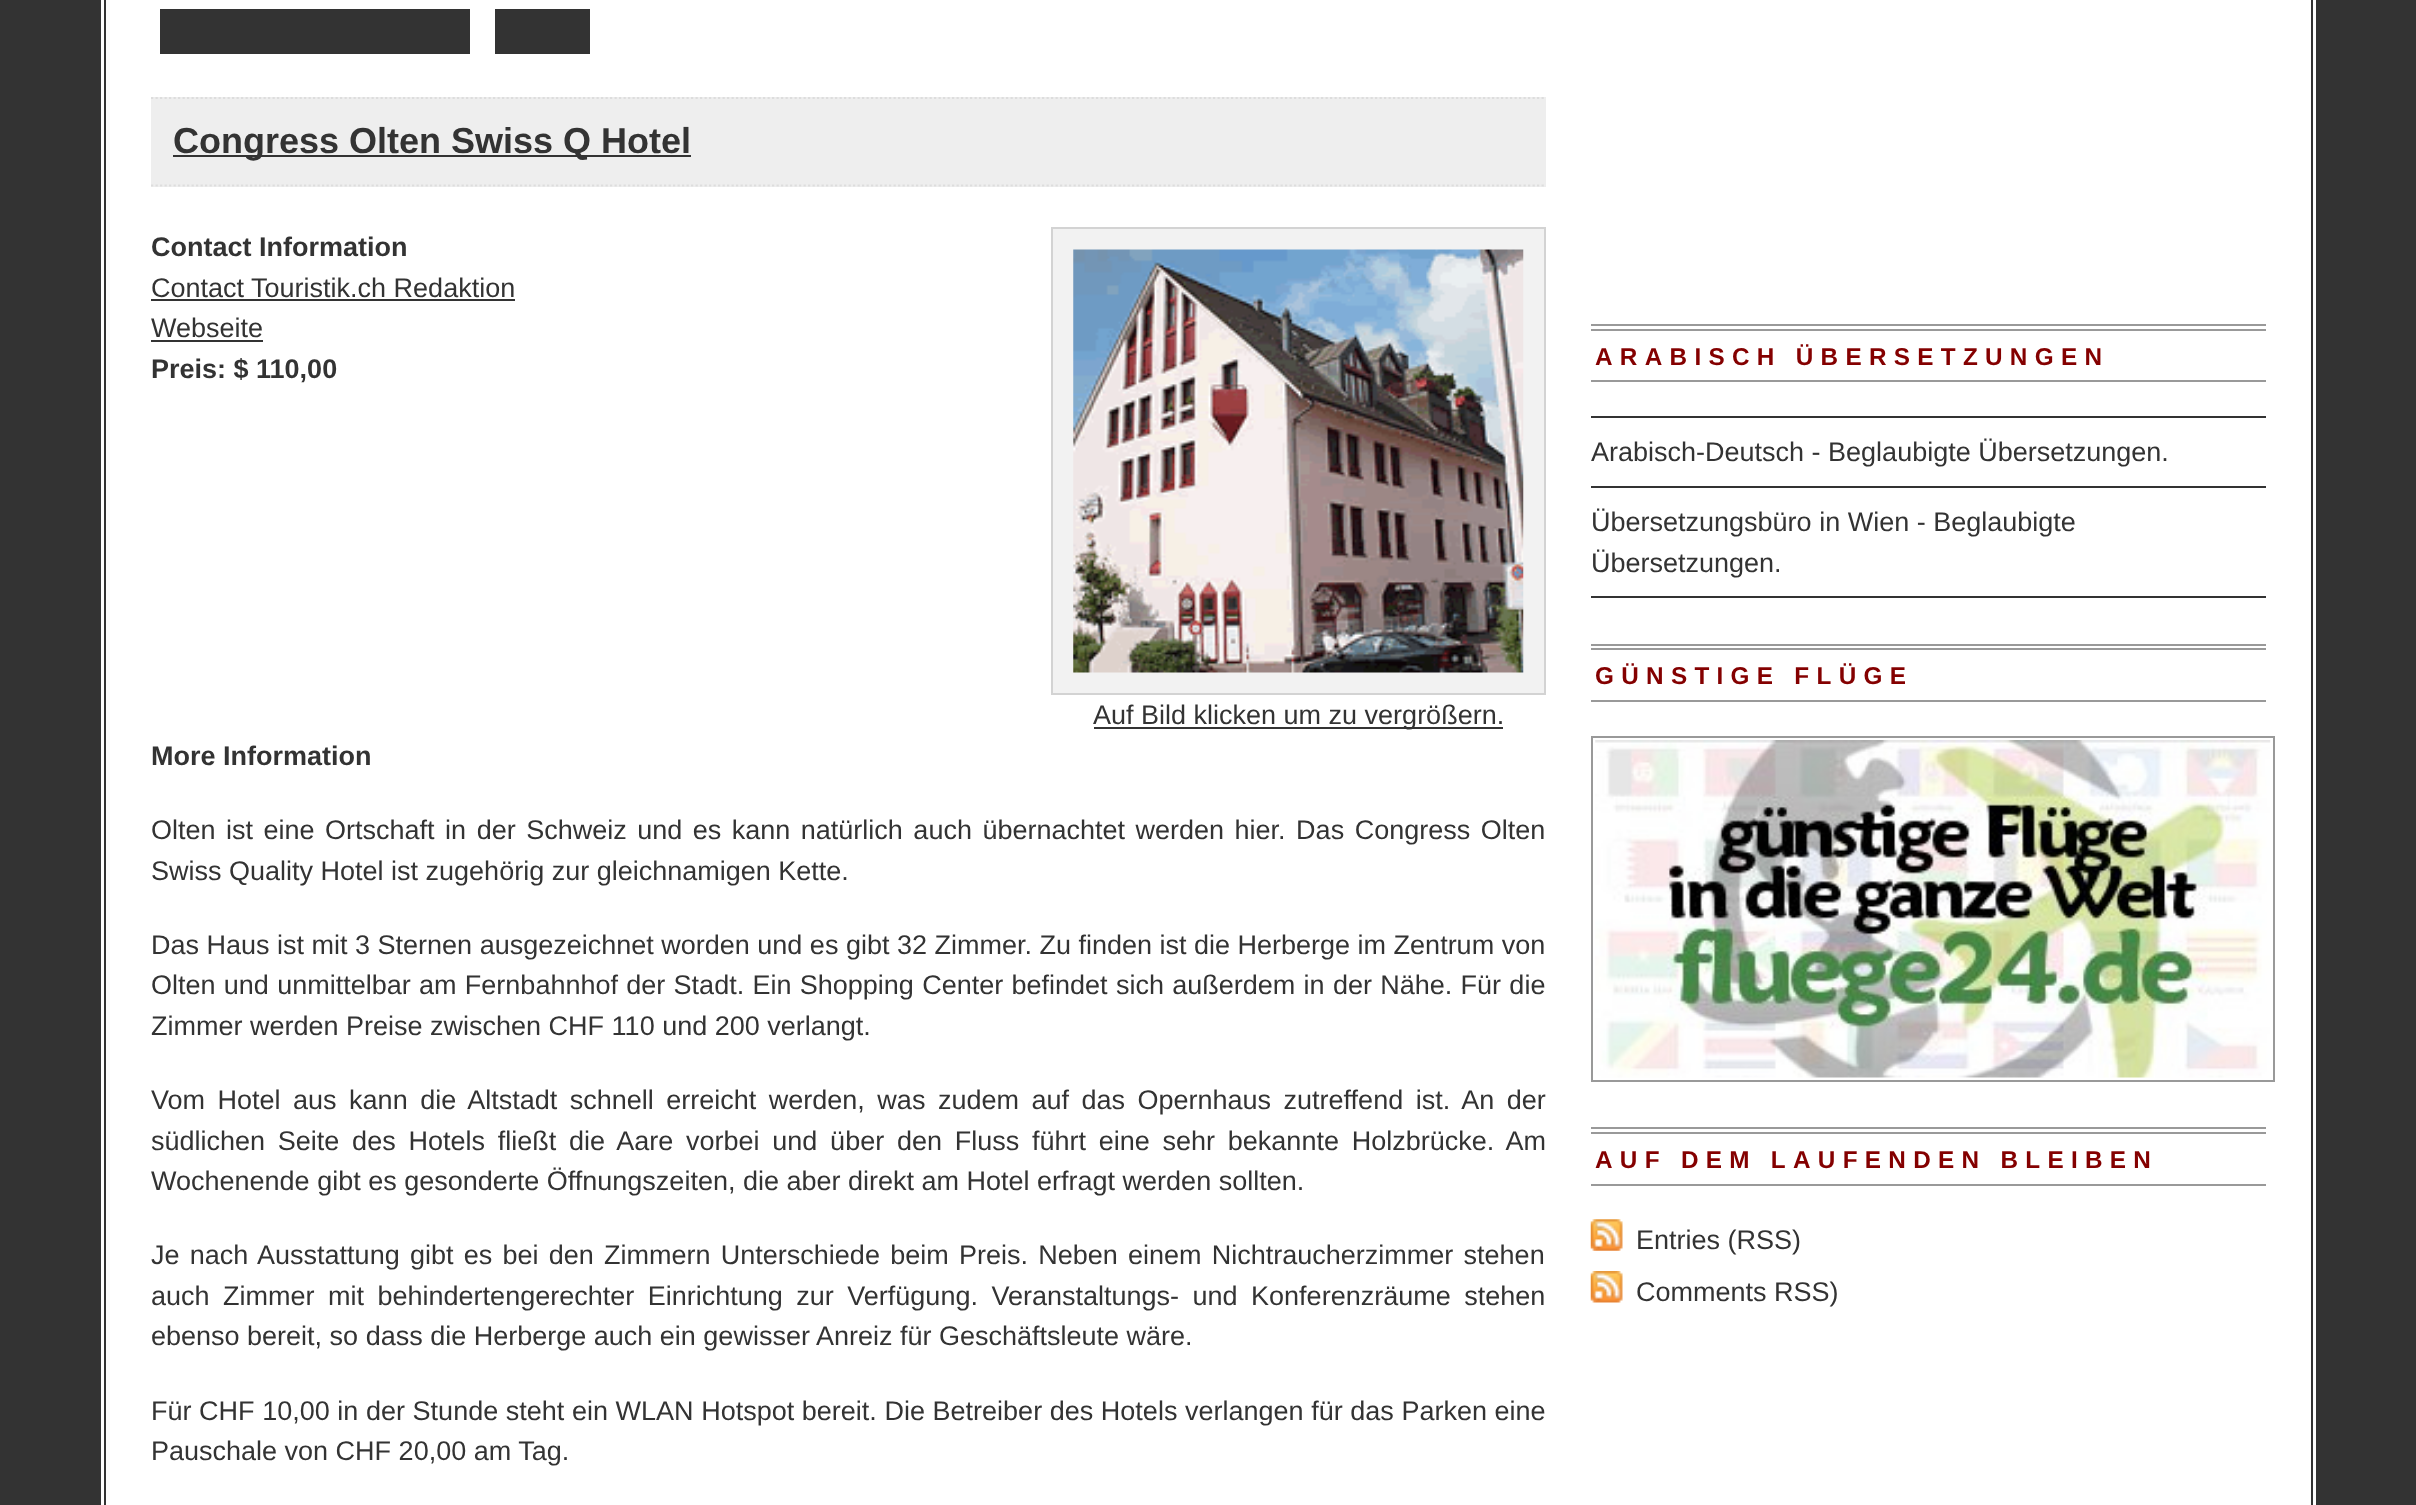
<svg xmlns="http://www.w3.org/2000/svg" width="2416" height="1505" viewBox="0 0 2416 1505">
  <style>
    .t1 { font: bold 36px Liberation Sans; fill: #333; }
    .t2 { font: bold 27px Liberation Sans; fill: #333; }
    .t3 { font: 27px Liberation Sans; fill: #333; }
    .t4 { font: bold 24.3px Liberation Sans; letter-spacing: 7.3px; fill: #840000; }
  </style>
  <rect width="100%" height="100%" fill="#333"/>
  <rect x="101" y="0" width="2215" height="1505" fill="#fff"/>
  <rect x="105" y="-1" width="2207" height="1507" fill="none" stroke="#333" stroke-width="2"/>
  <rect x="160" y="9" width="310" height="45" fill="#333"/>
  <rect x="495" y="9" width="95" height="45" fill="#333"/>
  <rect x="151" y="97" width="1395" height="90" fill="#eee"/>
  <path d="M151 98H1546" fill="none" stroke="#ddd" stroke-width="2.2" stroke-dasharray="2.25 2.25"/>
  <path d="M151 185.5H1546" fill="none" stroke="#ddd" stroke-width="2.2" stroke-dasharray="2.25 2.25"/>
  <rect x="173" y="155" width="518" height="2" fill="#333"/>
  <text x="173" y="153" class="t1">Congress Olten Swiss Q Hotel</text>
  <text x="151" y="256" class="t2">Contact Information</text>
  <text x="151" y="297" class="t3">Contact Touristik.ch Redaktion</text>
  <rect x="151" y="299" width="364" height="2" fill="#333"/>
  <text x="151" y="337" class="t3">Webseite</text>
  <rect x="151" y="340" width="112" height="2" fill="#333"/>
  <rect x="1052" y="228" width="493" height="466" fill="#f2f2f2" stroke="#d3d3d3" stroke-width="2"/>
  <image x="1073" y="249" width="451" height="424" href="images/1.png"/>
  <rect x="1094" y="727" width="409" height="2" fill="#333"/>
  <text x="1093" y="724" class="t3">Auf Bild klicken um zu vergrößern.</text>
  <text x="151" y="378" class="t2">Preis: $ 110,00</text>
  <text x="151" y="765" class="t2">More Information</text>
  <text x="151" y="839" word-spacing="3" class="t3">Olten ist eine Ortschaft in der Schweiz und es kann natürlich auch übernachtet werden hier. Das Congress Olten</text>
  <text x="151" y="880" class="t3">Swiss Quality Hotel ist zugehörig zur gleichnamigen Kette.</text>
  <text x="151" y="954" class="t3">Das Haus ist mit 3 Sternen ausgezeichnet worden und es gibt 32 Zimmer. Zu finden ist die Herberge im Zentrum von</text>
  <text x="151" y="994" word-spacing="0.8" class="t3">Olten und unmittelbar am Fernbahnhof der Stadt. Ein Shopping Center befindet sich außerdem in der Nähe. Für die</text>
  <text x="151" y="1035" class="t3">Zimmer werden Preise zwischen CHF 110 und 200 verlangt.</text>
  <text x="151" y="1109" word-spacing="5" class="t3">Vom Hotel aus kann die Altstadt schnell erreicht werden, was zudem auf das Opernhaus zutreffend ist. An der</text>
  <text x="151" y="1150" word-spacing="5.25" class="t3">südlichen Seite des Hotels fließt die Aare vorbei und über den Fluss führt eine sehr bekannte Holzbrücke. Am</text>
  <text x="151" y="1190" class="t3">Wochenende gibt es gesonderte Öffnungszeiten, die aber direkt am Hotel erfragt werden sollten.</text>
  <text x="151" y="1264" word-spacing="2.75" class="t3">Je nach Ausstattung gibt es bei den Zimmern Unterschiede beim Preis. Neben einem Nichtraucherzimmer stehen</text>
  <text x="151" y="1305" word-spacing="6" class="t3">auch Zimmer mit behindertengerechter Einrichtung zur Verfügung. Veranstaltungs- und Konferenzräume stehen</text>
  <text x="151" y="1345" class="t3">ebenso bereit, so dass die Herberge auch ein gewisser Anreiz für Geschäftsleute wäre.</text>
  <text x="151" y="1420" word-spacing="0.1" class="t3">Für CHF 10,00 in der Stunde steht ein WLAN Hotspot bereit. Die Betreiber des Hotels verlangen für das Parken eine</text>
  <text x="151" y="1460" class="t3">Pauschale von CHF 20,00 am Tag.</text>
  <rect x="1591" y="324" width="675" height="2" fill="#999"/>
  <rect x="1591" y="329" width="675" height="2" fill="#999"/>
  <rect x="1591" y="380" width="675" height="2" fill="#999"/>
  <text x="1595" y="365" class="t4">ARABISCH ÜBERSETZUNGEN</text>
  <rect x="1591" y="416" width="675" height="2" fill="#333"/>
  <text x="1591" y="461" class="t3">Arabisch-Deutsch - Beglaubigte Übersetzungen.</text>
  <rect x="1591" y="486" width="675" height="2" fill="#333"/>
  <text x="1591" y="531" class="t3">Übersetzungsbüro in Wien - Beglaubigte</text>
  <text x="1591" y="572" class="t3">Übersetzungen.</text>
  <rect x="1591" y="596" width="675" height="2" fill="#333"/>
  <rect x="1591" y="644" width="675" height="2" fill="#999"/>
  <rect x="1591" y="648" width="675" height="2" fill="#999"/>
  <rect x="1591" y="700" width="675" height="2" fill="#999"/>
  <text x="1595" y="684" class="t4">GÜNSTIGE FLÜGE</text>
  <rect x="1592" y="737" width="682" height="344" fill="none" stroke="#999" stroke-width="2"/>
  <image x="1595" y="740" width="676" height="338" href="images/2.png"/>
  <rect x="1591" y="1127" width="675" height="2" fill="#999"/>
  <rect x="1591" y="1132" width="675" height="2" fill="#999"/>
  <rect x="1591" y="1184" width="675" height="2" fill="#999"/>
  <text x="1595" y="1168" class="t4">AUF DEM LAUFENDEN BLEIBEN</text>
  <image x="1590" y="1219" width="33" height="32" href="images/3.png"/>
  <text x="1636" y="1249" class="t3">Entries (RSS)</text>
  <image x="1590" y="1271" width="33" height="32" href="images/4.png"/>
  <text x="1636" y="1301" class="t3">Comments RSS)</text>
</svg>
